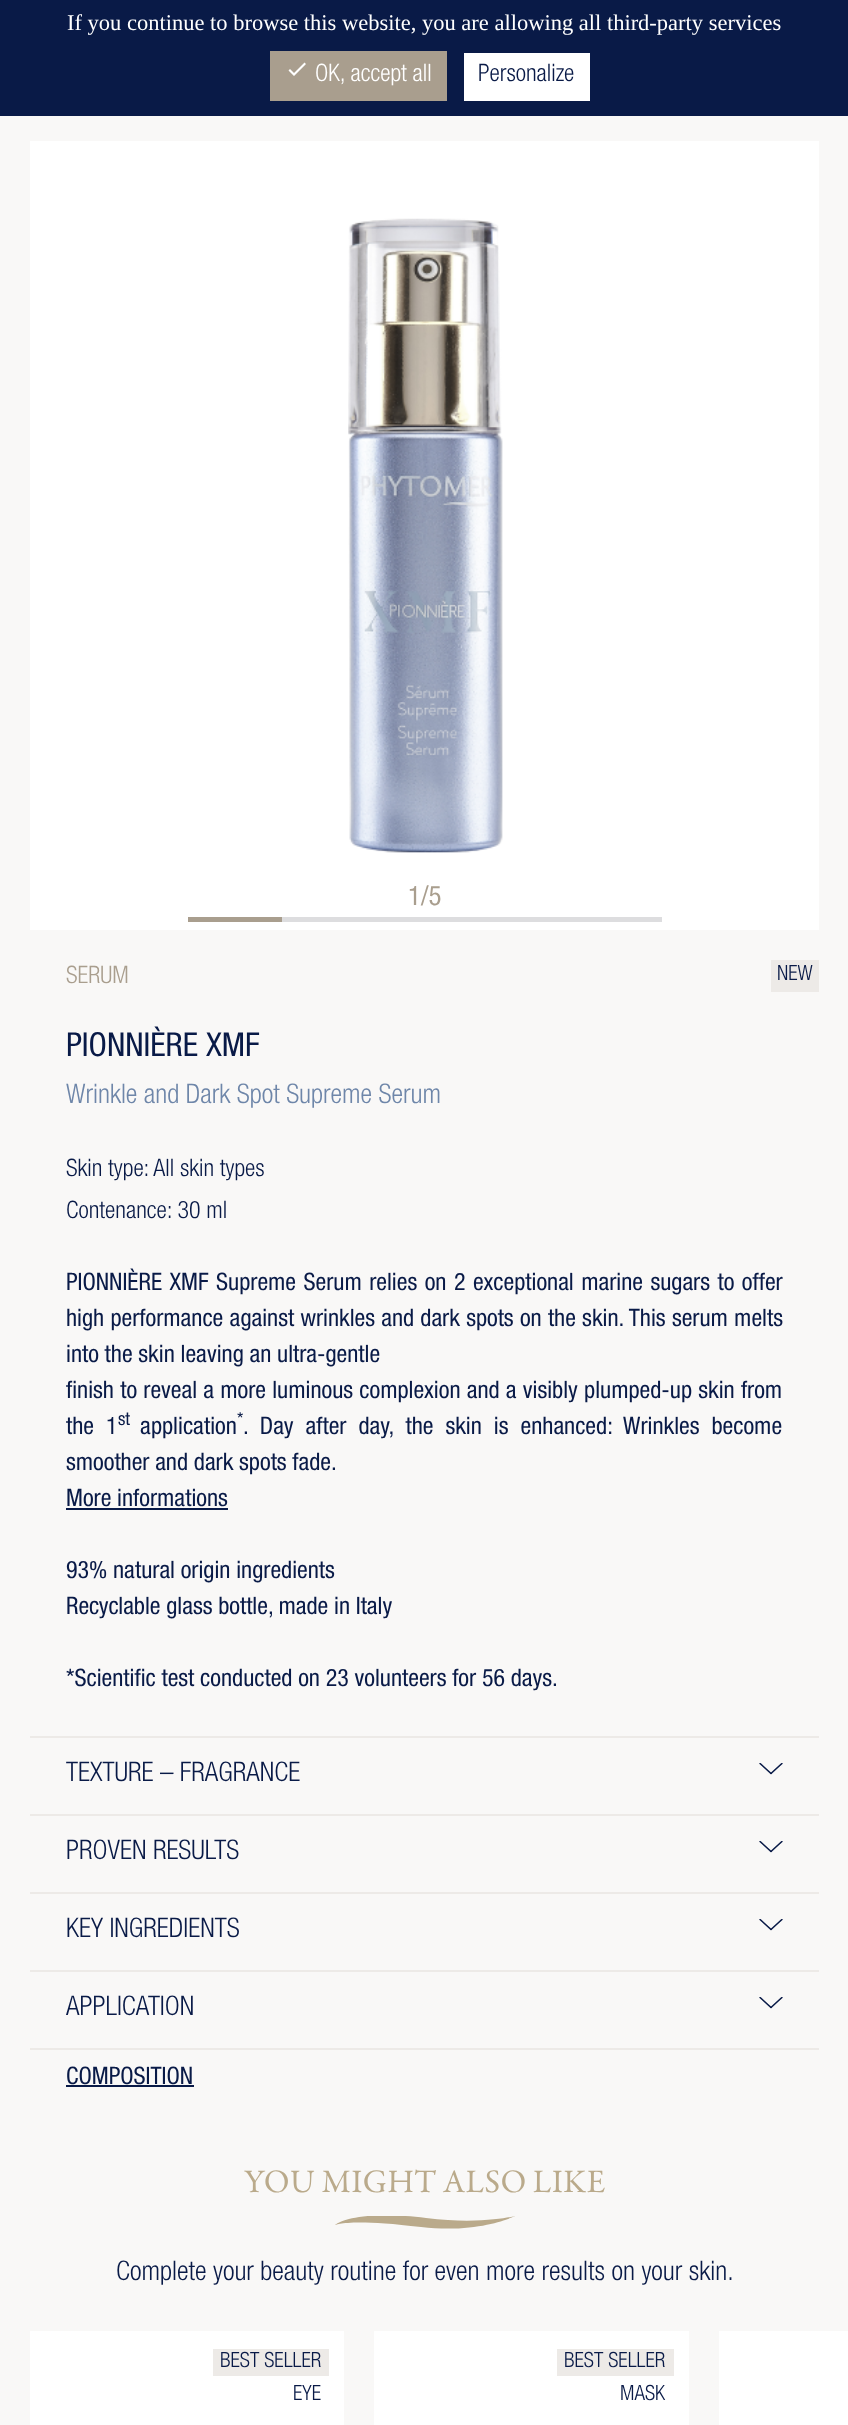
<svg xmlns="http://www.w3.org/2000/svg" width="848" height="2425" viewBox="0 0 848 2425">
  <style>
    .t1 { font: 22.5px Liberation Serif; fill: #fff; }
    .t2 { font: 300 24px Helvetica Neue; fill: #fff; }
    .t3 { font: 300 24px Helvetica Neue; fill: #091a47; }
    .t4 { font: 27px Helvetica Neue; fill: #a99e8e; }
    .t5 { font: 300 24px Helvetica Neue; fill: #a99e8e; }
    .t6 { font: 300 21px Helvetica Neue; fill: #091a47; }
    .t7 { font: 33px Helvetica Neue; fill: #091a47; }
    .t8 { font: 300 27px Helvetica Neue; fill: #6e86a9; }
    .t9 { font: 24px Helvetica Neue; fill: #091a47; }
    .t10 { font: 18px Helvetica Neue; fill: #091a47; }
    .t11 { font: 300 27px Helvetica Neue; fill: #091a47; }
    .t12 { font: 33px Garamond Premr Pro; fill: #baaa8b; }
  </style>
  <defs>
    <clipPath id="clip1"><rect x="335" y="2216" width="180" height="13"/></clipPath>
  </defs>
  <rect width="100%" height="100%" fill="#f9f8f7"/>
  <rect x="0" y="0" width="848" height="116" fill="#091a47"/>
  <text x="67" y="30" class="t1">If you continue to browse this website, you are allowing all third-party services</text>
  <rect x="270" y="51" width="177" height="50" fill="#a99e8e"/>
  <path d="M294 73L304.5 62.5L306 64L294 76L288.5 70.5L290 69Z" fill="#fff"/>
  <text x="315" y="81" class="t2">OK, accept all</text>
  <rect x="464" y="53" width="126" height="48" fill="#fff"/>
  <text x="478" y="81" class="t3">Personalize</text>
  <rect x="30" y="141" width="789" height="789" fill="#fff"/>
  <image x="348" y="218" width="155" height="635" href="images/1.png"/>
  <text x="408" y="905" class="t4">1/5</text>
  <rect x="188" y="917" width="94" height="5" fill="#a99e8e"/>
  <rect x="282" y="917" width="380" height="5" fill="#dddddf"/>
  <text x="66" y="983" class="t5">SERUM</text>
  <rect x="771" y="960" width="48" height="32" fill="#edeae7"/>
  <text x="777" y="980" class="t6">NEW</text>
  <text x="66" y="1056" class="t7">PIONNIÈRE XMF</text>
  <text x="66" y="1103" class="t8">Wrinkle and Dark Spot Supreme Serum</text>
  <text x="66" y="1176" class="t3">Skin type: All skin types</text>
  <text x="66" y="1218" class="t3">Contenance: 30 ml</text>
  <text x="66" y="1290" word-spacing="1.75" class="t9">PIONNIÈRE XMF Supreme Serum relies on 2 exceptional marine sugars to offer</text>
  <text x="66" y="1326" word-spacing="0.5" class="t9">high performance against wrinkles and dark spots on the skin. This serum melts</text>
  <text x="66" y="1362" class="t9">into the skin leaving an ultra-gentle</text>
  <text x="66" y="1398" word-spacing="0.5" class="t9">finish to reveal a more luminous complexion and a visibly plumped-up skin from</text>
  <text x="118" y="1425" class="t10">st</text>
  <text x="237" y="1425" class="t10">*</text>
  <text x="66" y="1434" word-spacing="6.25" class="t9">the 1</text>
  <text x="140" y="1434" class="t9">application</text>
  <text x="243" y="1434" word-spacing="6.25" class="t9">. Day after day, the skin is enhanced: Wrinkles become</text>
  <text x="66" y="1470" class="t9">smoother and dark spots fade.</text>
  <text x="66" y="1506" class="t9">More informations</text>
  <rect x="66" y="1508" width="162" height="2" fill="#091a47"/>
  <text x="66" y="1578" class="t9">93% natural origin ingredients</text>
  <text x="66" y="1614" class="t9">Recyclable glass bottle, made in Italy</text>
  <text x="66" y="1686" class="t9">*Scientific test conducted on 23 volunteers for 56 days.</text>
  <rect x="30" y="1736" width="789" height="2" fill="#edeae7"/>
  <text x="66" y="1781" class="t11">TEXTURE – FRAGRANCE</text>
  <image x="759" y="1763" width="24" height="12" href="images/2.png"/>
  <rect x="30" y="1814" width="789" height="2" fill="#edeae7"/>
  <text x="66" y="1859" class="t11">PROVEN RESULTS</text>
  <image x="759" y="1841" width="24" height="12" href="images/2.png"/>
  <rect x="30" y="1892" width="789" height="2" fill="#edeae7"/>
  <text x="66" y="1937" class="t11">KEY INGREDIENTS</text>
  <image x="759" y="1919" width="24" height="12" href="images/2.png"/>
  <rect x="30" y="1970" width="789" height="2" fill="#edeae7"/>
  <text x="66" y="2015" class="t11">APPLICATION</text>
  <image x="759" y="1997" width="24" height="12" href="images/2.png"/>
  <rect x="30" y="2048" width="789" height="2" fill="#edeae7"/>
  <text x="66" y="2084" class="t9">COMPOSITION</text>
  <rect x="66" y="2085" width="128" height="2" fill="#091a47"/>
  <text x="244" y="2192" class="t12">YOU MIGHT ALSO LIKE</text>
  <g clip-path="url(#clip1)">
    <path d="M515 2216C515 2216 481 2225 426 2218C353 2209 335 2225 335 2225C335 2225 349 2218 421 2227C479 2234 515 2216 515 2216Z" fill="#baaa8b"/>
  </g>
  <text x="116" y="2280" class="t11">Complete your beauty routine for even more results on your skin.</text>
  <rect x="30" y="2331" width="314" height="94" fill="#fff"/>
  <rect x="213" y="2349" width="116" height="27" fill="#edeae7"/>
  <text x="220" y="2367" class="t6">BEST SELLER</text>
  <text x="293" y="2400" class="t6">EYE</text>
  <rect x="374" y="2331" width="315" height="94" fill="#fff"/>
  <rect x="557" y="2349" width="117" height="27" fill="#edeae7"/>
  <text x="564" y="2367" class="t6">BEST SELLER</text>
  <text x="620" y="2400" class="t6">MASK</text>
  <rect x="719" y="2331" width="129" height="94" fill="#fff"/>
</svg>
